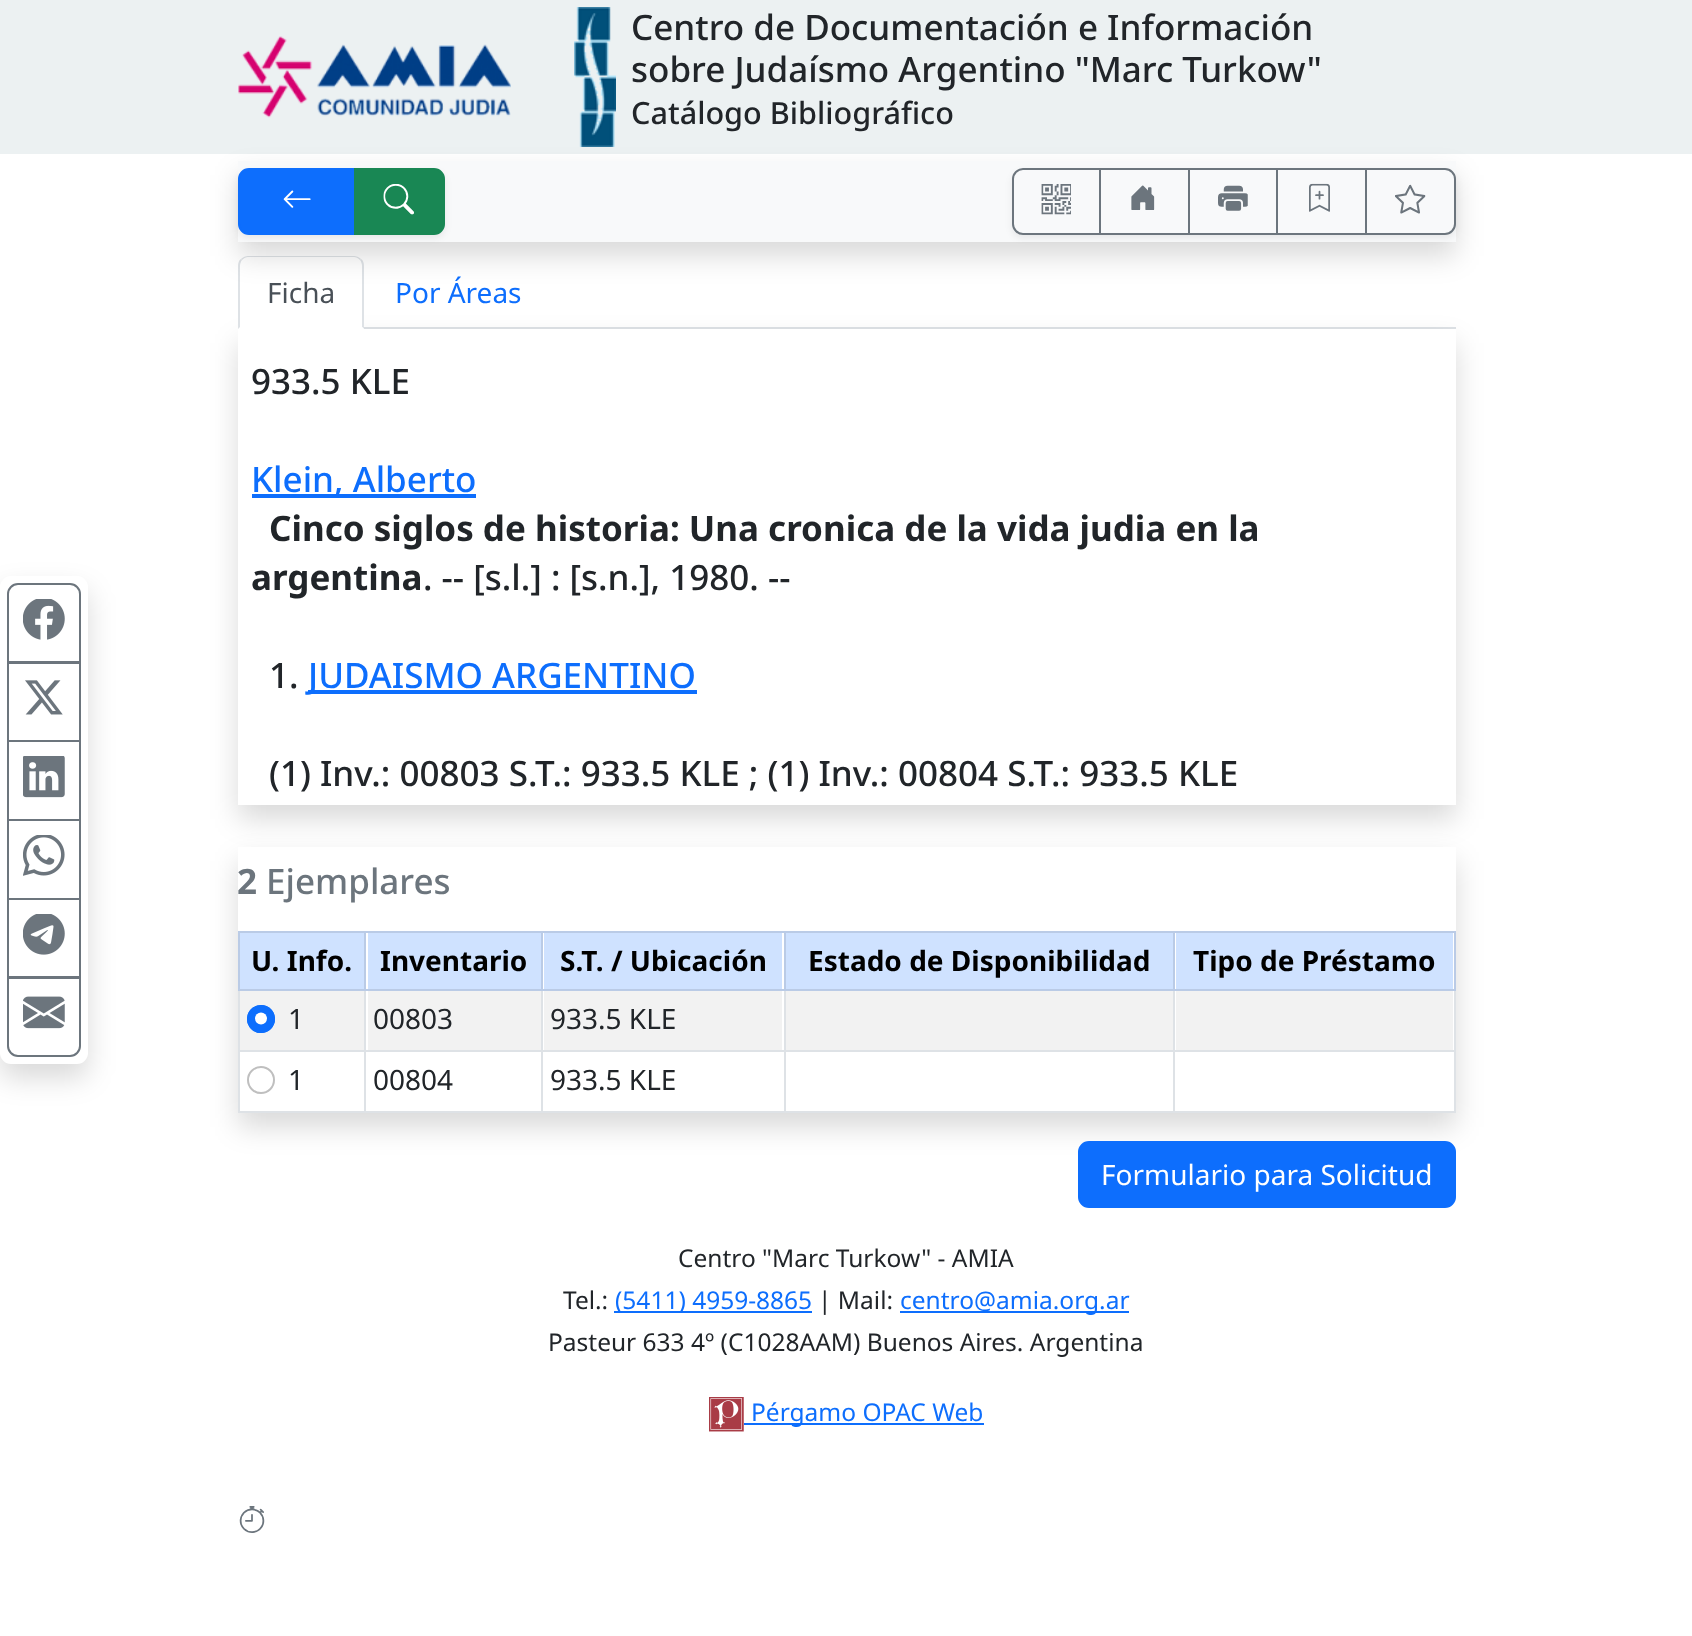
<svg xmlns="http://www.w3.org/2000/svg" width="1692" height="1636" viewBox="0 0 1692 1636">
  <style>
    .t1 { font: 500 35px Noto Sans; fill: #212529; }
    .t2 { font: 500 30.6px Noto Sans; fill: #212529; }
    .t3 { font: 28px Noto Sans; fill: #495057; }
    .t4 { font: 28px Noto Sans; fill: #0d6efd; }
    .t5 { font: 500 35px Noto Sans; fill: #0d6efd; }
    .t6 { font: bold 35px Noto Sans; fill: #212529; }
    .t7 { font: bold 35px Noto Sans; fill: #6c757d; }
    .t8 { font: 500 35px Noto Sans; fill: #6c757d; }
    .t9 { font: bold 28px Noto Sans; fill: #000; }
    .t10 { font: 28px Noto Sans; fill: #212529; }
    .t11 { font: 28px Noto Sans; fill: #fff; }
    .t12 { font: 24.5px Noto Sans; fill: #212529; }
    .t13 { font: 24.5px Noto Sans; fill: #0d6efd; }
  </style>
  <defs>
    <clipPath id="clip1"><path d="M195 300H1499V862H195ZM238 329H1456V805H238Z" clip-rule="evenodd"/></clipPath>
    <clipPath id="clip2"><path d="M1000 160H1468V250H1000ZM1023 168H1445C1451 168 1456 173 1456 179V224C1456 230 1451 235 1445 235H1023C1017 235 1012 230 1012 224V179C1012 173 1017 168 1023 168Z" clip-rule="evenodd"/></clipPath>
    <clipPath id="clip3"><path d="M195 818H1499V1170H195ZM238 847H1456V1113H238Z" clip-rule="evenodd"/></clipPath>
  </defs>
  <rect width="100%" height="100%" fill="#fff"/>
  <rect x="0" y="0" width="1692" height="154" fill="#ecf1f2"/>
  <image x="238" y="36" width="273" height="82" href="images/1.png"/>
  <image x="574" y="7" width="42" height="140" href="images/2.png"/>
  <text x="631" y="40" class="t1">Centro de Documentación e Información</text>
  <text x="631" y="82" class="t1">sobre Judaísmo Argentino "Marc Turkow"</text>
  <text x="631" y="124" class="t2">Catálogo Bibliográfico</text>
  <rect x="0" y="590" width="88" height="488" rx="11" fill="#00000026" filter="blur(14px)"/>
  <rect x="0" y="576" width="88" height="488" rx="11" fill="#fff"/>
  <path d="M18 584H70C75.5 584 80 588.5 80 594V662H8V594C8 588.5 12.5 584 18 584Z" fill="none" stroke="#6c757d" stroke-width="2"/>
  <image x="23" y="599" width="42" height="41" href="images/3.png"/>
  <rect x="8" y="663" width="72" height="78" fill="none" stroke="#6c757d" stroke-width="2"/>
  <image x="25" y="680" width="38" height="35" href="images/4.png"/>
  <rect x="8" y="741" width="72" height="79" fill="none" stroke="#6c757d" stroke-width="2"/>
  <image x="23" y="756" width="42" height="42" href="images/5.png"/>
  <rect x="8" y="820" width="72" height="79" fill="none" stroke="#6c757d" stroke-width="2"/>
  <image x="23" y="835" width="42" height="41" href="images/6.png"/>
  <rect x="8" y="899" width="72" height="78" fill="none" stroke="#6c757d" stroke-width="2"/>
  <image x="23" y="914" width="42" height="41" href="images/7.png"/>
  <path d="M8 978H80V1046C80 1051.5 75.5 1056 70 1056H18C12.5 1056 8 1051.5 8 1046Z" fill="none" stroke="#6c757d" stroke-width="2"/>
  <image x="23" y="996" width="42" height="33" href="images/8.png"/>
  <rect x="364" y="327" width="1092" height="2" fill="#dee2e6"/>
  <g clip-path="url(#clip1)">
    <rect x="238" y="343" width="1218" height="476" fill="#00000026" filter="blur(14px)"/>
  </g>
  <path d="M249 256H353C359 256 364 261 364 267V329H238V267C238 261 243 256 249 256Z" fill="#fff"/>
  <path d="M248 256C246 256 243 257 241 259L242 260C244 258 246 257 248 257H354C356 257 358 258 360 260L361 259C359 257 356 256 354 256Z" fill="#dee2e6"/>
  <path d="M361 259C363 260 364 263 364 266V329L362 327V266C362 264 361 261 360 260Z" fill="#dee2e6"/>
  <path d="M364 329L362 327H240L238 329Z" fill="#fff"/>
  <path d="M238 329L240 327V266C240 264 241 261 242 260L241 259C239 260 238 263 238 266Z" fill="#dee2e6"/>
  <rect x="238" y="175" width="1218" height="81" fill="#00000026" filter="blur(14px)"/>
  <rect x="238" y="161" width="1218" height="81" fill="#f8f9fa"/>
  <rect x="238" y="172" width="207" height="66" rx="11" fill="#00000012" filter="blur(3.5px)"/>
  <path d="M249 169H354V234H249C243.5 234 239 229.5 239 224V179C239 173.5 243.5 169 249 169Z" fill="#0d6efd" stroke="#0d6efd" stroke-width="2"/>
  <image x="283" y="190" width="28" height="18" href="images/9.png"/>
  <path d="M355 169H434C439.5 169 444 173.5 444 179V224C444 229.5 439.5 234 434 234H355Z" fill="#198754" stroke="#198754" stroke-width="2"/>
  <image x="383" y="184" width="31" height="31" href="images/10.png"/>
  <g clip-path="url(#clip2)">
    <rect x="1012" y="172" width="444" height="66" rx="11" fill="#00000012" filter="blur(3.5px)"/>
  </g>
  <path d="M1023 169H1100V234H1023C1017.5 234 1013 229.5 1013 224V179C1013 173.5 1017.5 169 1023 169Z" fill="none" stroke="#6c757d" stroke-width="2"/>
  <image x="1041" y="184" width="30" height="31" href="images/11.png"/>
  <rect x="1100" y="169" width="89" height="65" fill="none" stroke="#6c757d" stroke-width="2"/>
  <image x="1131" y="185" width="24" height="25" href="images/12.png"/>
  <rect x="1189" y="169" width="88" height="65" fill="none" stroke="#6c757d" stroke-width="2"/>
  <image x="1218" y="185" width="30" height="26" href="images/13.png"/>
  <rect x="1277" y="169" width="89" height="65" fill="none" stroke="#6c757d" stroke-width="2"/>
  <image x="1309" y="183" width="21" height="29" href="images/14.png"/>
  <path d="M1366 169H1445C1450.5 169 1455 173.5 1455 179V224C1455 229.5 1450.5 234 1445 234H1366Z" fill="none" stroke="#6c757d" stroke-width="2"/>
  <image x="1395" y="184" width="31" height="30" href="images/15.png"/>
  <text x="267" y="303" class="t3">Ficha</text>
  <text x="395" y="303" class="t4">Por Áreas</text>
  <text x="251" y="394" class="t1">933.5 KLE</text>
  <rect x="252" y="494" width="224" height="4" fill="#0d6efd"/>
  <text x="251" y="492" class="t5">Klein, Alberto</text>
  <text x="269" y="541" class="t6">Cinco siglos de historia: Una cronica de la vida judia en la</text>
  <text x="251" y="590" class="t6">argentina</text>
  <text x="423" y="590" class="t1">. -- [s.l.] : [s.n.], 1980. --</text>
  <text x="269" y="688" class="t1">1.</text>
  <rect x="308" y="690" width="389" height="4" fill="#0d6efd"/>
  <text x="308" y="688" class="t5">JUDAISMO ARGENTINO</text>
  <text x="269" y="786" class="t1">(1) Inv.: 00803 S.T.: 933.5 KLE ; (1) Inv.: 00804 S.T.: 933.5 KLE</text>
  <g clip-path="url(#clip3)">
    <rect x="238" y="861" width="1218" height="266" fill="#00000026" filter="blur(14px)"/>
  </g>
  <text x="237" y="894" class="t7">2</text>
  <text x="266" y="894" class="t8">Ejemplares</text>
  <rect x="238" y="931" width="1218" height="2" fill="#bacbe6"/>
  <rect x="238" y="989" width="1218" height="2" fill="#bacbe6"/>
  <rect x="240" y="933" width="124" height="56" fill="#cfe2ff"/>
  <rect x="238" y="1050" width="1218" height="2" fill="#dee2e6"/>
  <rect x="238" y="1111" width="1218" height="2" fill="#dee2e6"/>
  <rect x="238" y="989" width="2" height="124" fill="#dee2e6"/>
  <rect x="238" y="931" width="2" height="60" fill="#bacbe6"/>
  <text x="251" y="971" class="t9">U. Info.</text>
  <rect x="368" y="933" width="173" height="56" fill="#cfe2ff"/>
  <rect x="364" y="989" width="2" height="124" fill="#dee2e6"/>
  <rect x="364" y="931" width="2" height="60" fill="#bacbe6"/>
  <text x="380" y="971" class="t9">Inventario</text>
  <rect x="544" y="933" width="238" height="56" fill="#cfe2ff"/>
  <rect x="541" y="989" width="2" height="124" fill="#dee2e6"/>
  <rect x="541" y="931" width="2" height="60" fill="#bacbe6"/>
  <text x="560" y="971" class="t9">S.T. / Ubicación</text>
  <rect x="786" y="933" width="387" height="56" fill="#cfe2ff"/>
  <rect x="784" y="989" width="2" height="124" fill="#dee2e6"/>
  <rect x="784" y="931" width="2" height="60" fill="#bacbe6"/>
  <text x="808" y="971" class="t9">Estado de Disponibilidad</text>
  <rect x="1176" y="933" width="277" height="56" fill="#cfe2ff"/>
  <rect x="1454" y="989" width="2" height="124" fill="#dee2e6"/>
  <rect x="1454" y="931" width="2" height="60" fill="#bacbe6"/>
  <rect x="1173" y="989" width="2" height="124" fill="#dee2e6"/>
  <rect x="1173" y="931" width="2" height="60" fill="#bacbe6"/>
  <text x="1193" y="971" class="t9">Tipo de Préstamo</text>
  <rect x="240" y="991" width="124" height="59" fill="#f2f2f2"/>
  <circle cx="261" cy="1019" r="14" fill="#0d6efd"/>
  <circle cx="261" cy="1018.5" r="6" fill="#fff"/>
  <circle cx="261" cy="1019" r="13" fill="none" stroke="#0d6efd" stroke-width="2"/>
  <text x="288" y="1029" class="t10">1</text>
  <rect x="368" y="991" width="173" height="59" fill="#f2f2f2"/>
  <text x="373" y="1029" class="t10">00803</text>
  <rect x="544" y="991" width="238" height="59" fill="#f2f2f2"/>
  <text x="550" y="1029" class="t10">933.5 KLE</text>
  <rect x="786" y="991" width="387" height="59" fill="#f2f2f2"/>
  <rect x="1176" y="991" width="277" height="59" fill="#f2f2f2"/>
  <circle cx="261" cy="1080" r="13" fill="none" stroke="#bfbfbf" stroke-width="2"/>
  <text x="288" y="1090" class="t10">1</text>
  <text x="373" y="1090" class="t10">00804</text>
  <text x="550" y="1090" class="t10">933.5 KLE</text>
  <rect x="1079" y="1142" width="376" height="65" rx="10" fill="#0d6efd" stroke="#0d6efd" stroke-width="2"/>
  <text x="1101" y="1185" class="t11">Formulario para Solicitud</text>
  <text x="678" y="1267" class="t12">Centro "Marc Turkow" - AMIA</text>
  <text x="563" y="1309" class="t12">Tel.:</text>
  <rect x="614" y="1311" width="198" height="2" fill="#0d6efd"/>
  <text x="615" y="1309" class="t13">(5411) 4959-8865</text>
  <text x="818" y="1309" class="t12">| Mail:</text>
  <rect x="900" y="1311" width="229" height="2" fill="#0d6efd"/>
  <text x="900" y="1309" class="t13">centro@amia.org.ar</text>
  <text x="548" y="1351" class="t12">Pasteur 633 4º (C1028AAM) Buenos Aires. Argentina</text>
  <image x="709" y="1397" width="35" height="35" href="images/16.png"/>
  <rect x="744" y="1423" width="240" height="2" fill="#0d6efd"/>
  <text x="751" y="1421" class="t13">Pérgamo OPAC Web</text>
  <image x="239" y="1506" width="26" height="27" href="images/17.png"/>
</svg>
